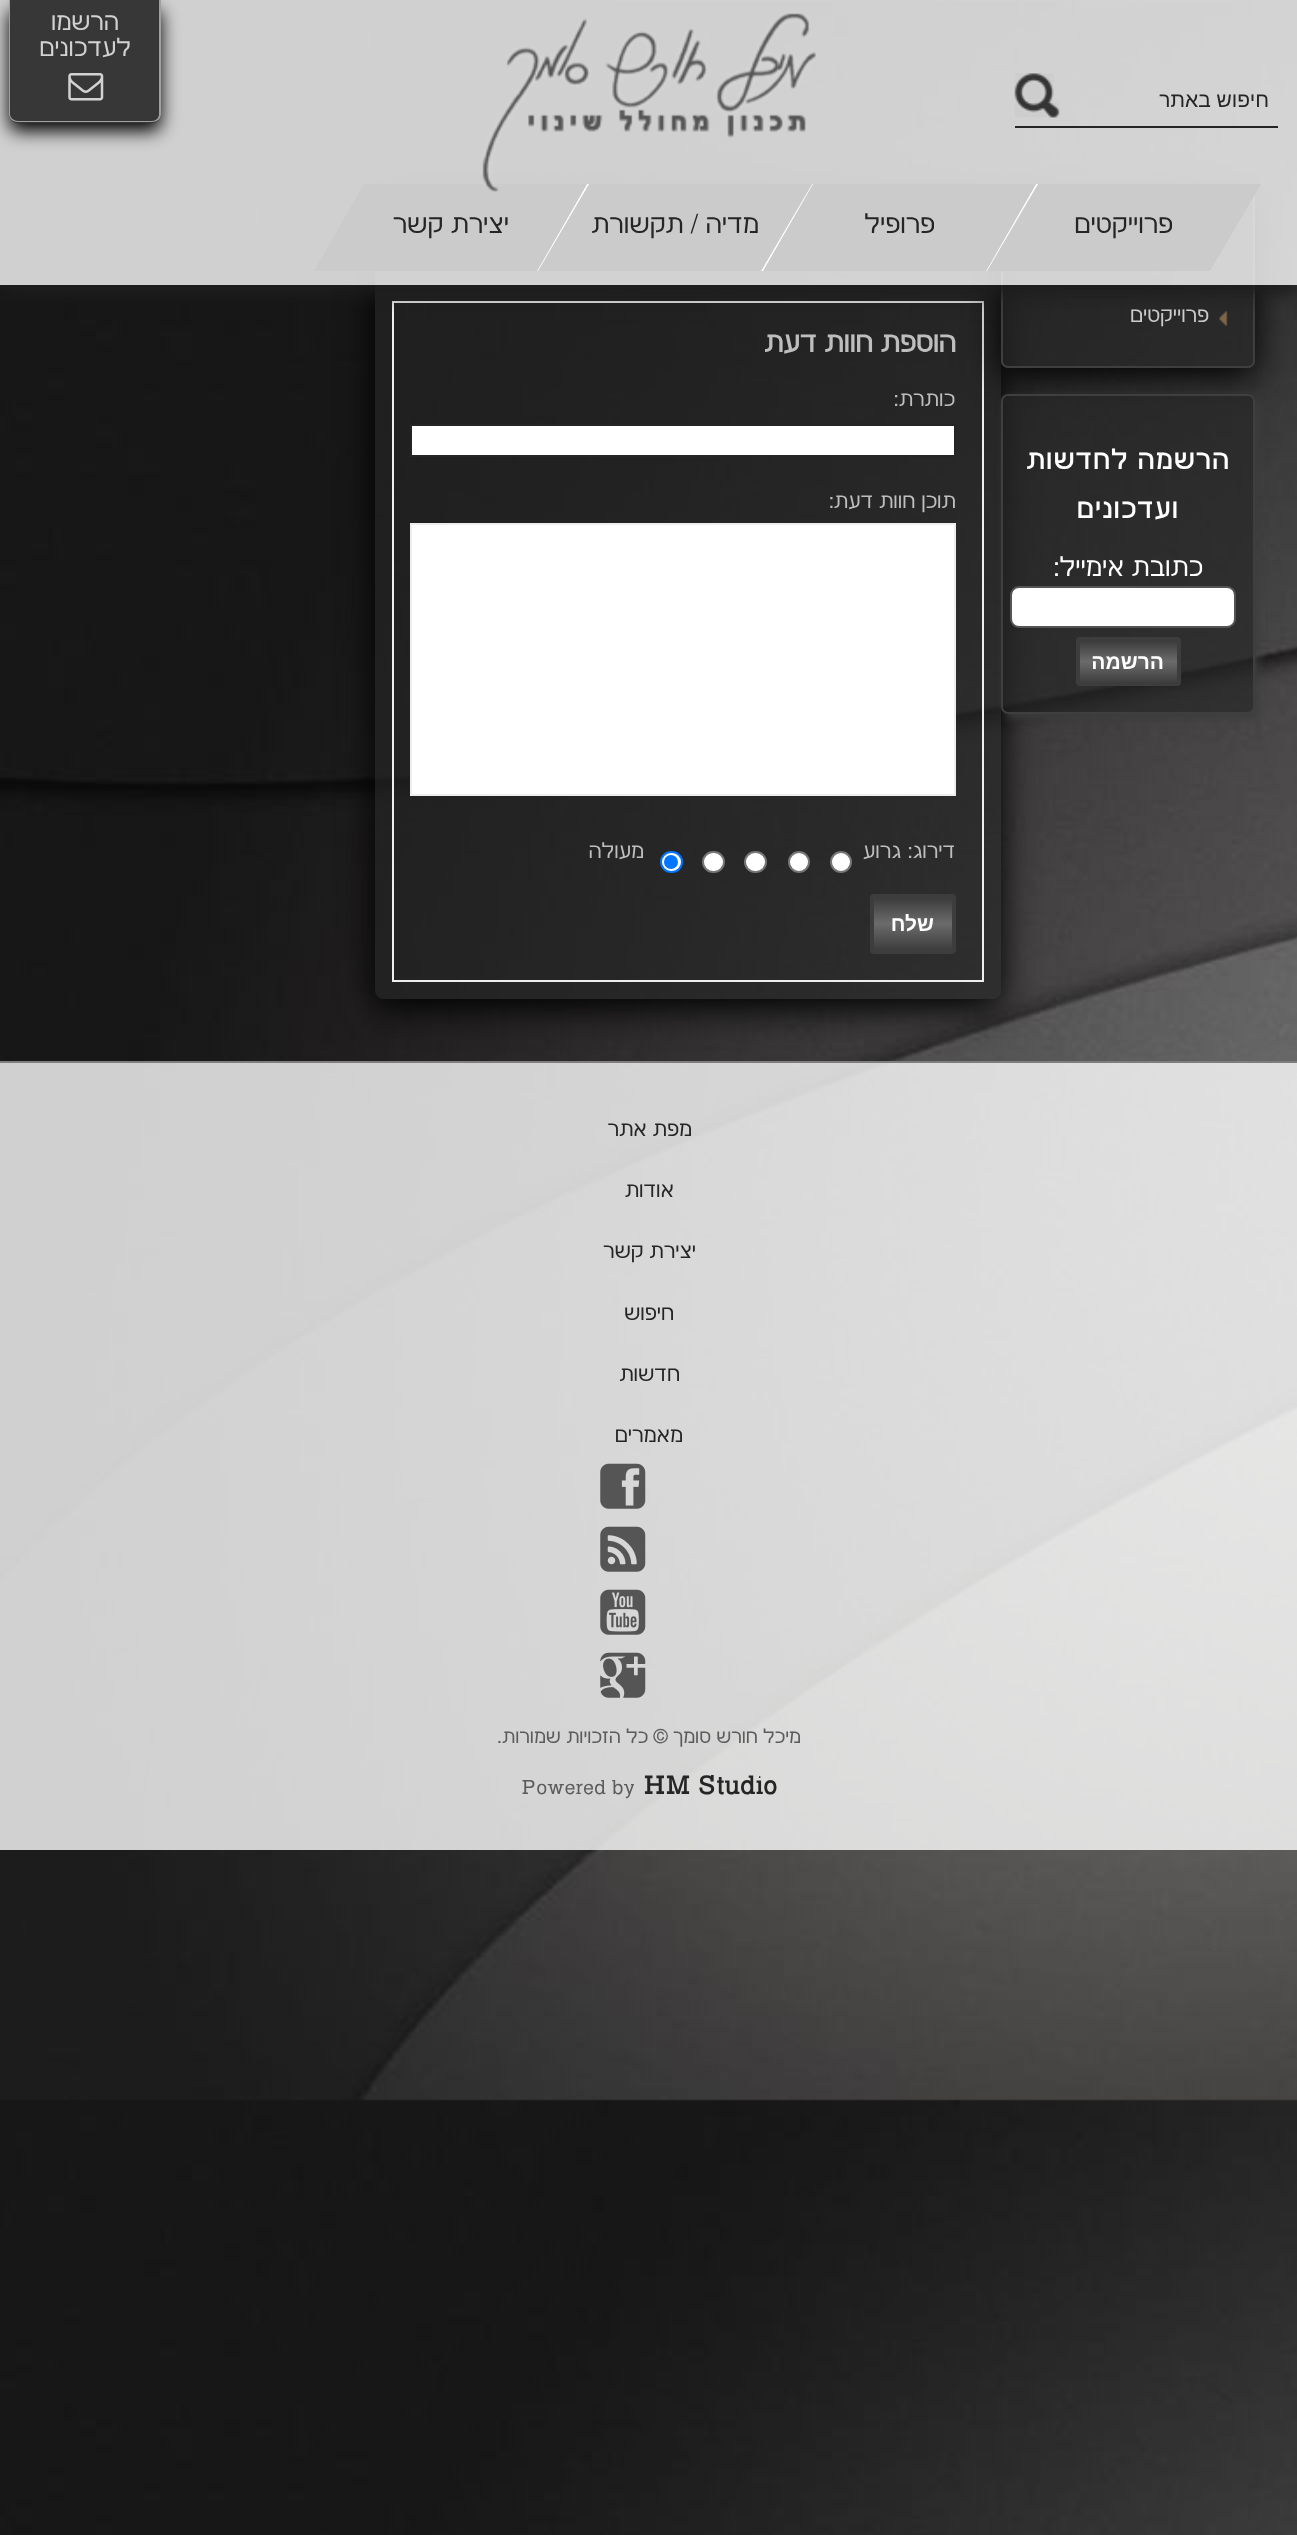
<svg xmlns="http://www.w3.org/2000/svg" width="1297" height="2535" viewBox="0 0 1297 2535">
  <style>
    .t1 { font: 24.5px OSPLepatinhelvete; direction: rtl; fill: #d2d2d2; }
    .t2 { font: 21px Liberation Sans; direction: rtl; fill: #252525; }
    .t3 { font: 26.25px OSPLepatinhelvete; direction: rtl; fill: #252525; }
    .t4 { font: 21px OSPLepatinhelvete; direction: rtl; fill: #cbcbcb; }
    .t5 { font: bold 26.25px OSPLepatinhelvete; letter-spacing: 1.75px; direction: rtl; fill: #fff; }
    .t6 { font: 26.25px OSPLepatinhelvete; direction: rtl; fill: #fff; }
    .t7 { font: bold 21px Liberation Sans; direction: rtl; fill: #fff; }
    .t8 { font: bold 28px OSPLepatinhelvete; direction: rtl; fill: #bebebe; }
    .t9 { font: 21px OSPLepatinhelvete; direction: rtl; fill: #bebebe; }
    .t10 { font: 21px OSPLepatinhelvete; direction: rtl; fill: #252525; }
    .t11 { font: 19.25px OSPLepatinhelvete; direction: rtl; fill: #5c5b5b; }
    .t12 { font: bold 24.5px OSPLepatinhelvete; fill: #252525; }
    .t13 { font: 19.25px OSPLepatinhelvete; fill: #5c5b5b; }
  </style>
  <defs>
    <clipPath id="clip1"><path d="M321 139H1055V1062H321ZM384 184H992C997 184 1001 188 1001 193V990C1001 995 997 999 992 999H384C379 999 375 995 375 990V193C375 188 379 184 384 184Z" clip-rule="evenodd"/></clipPath>
    <clipPath id="clip2"><path d="M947 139H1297V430H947ZM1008 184H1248C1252 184 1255 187 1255 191V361C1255 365 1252 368 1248 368H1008C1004 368 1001 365 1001 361V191C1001 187 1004 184 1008 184Z" clip-rule="evenodd"/></clipPath>
    <clipPath id="clip3"><rect x="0" y="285" width="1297" height="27"/></clipPath>
    <clipPath id="clip4"><path d="M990 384H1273V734H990ZM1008 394H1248C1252 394 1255 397 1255 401V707C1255 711 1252 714 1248 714H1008C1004 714 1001 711 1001 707V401C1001 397 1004 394 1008 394Z" clip-rule="evenodd"/></clipPath>
    <linearGradient id="g1" gradientUnits="userSpaceOnUse" x1="1129" y1="641" x2="1129" y2="683"><stop offset="0.01" stop-color="#3d3d3d"/><stop offset="0.49" stop-color="#6b6b6b"/><stop offset="1" stop-color="#3d3d3d"/></linearGradient>
    <linearGradient id="g2" gradientUnits="userSpaceOnUse" x1="913" y1="898" x2="913" y2="950"><stop offset="0.01" stop-color="#3d3d3d"/><stop offset="0.49" stop-color="#6b6b6b"/><stop offset="1" stop-color="#3d3d3d"/></linearGradient>
  </defs>
  <rect width="100%" height="100%" fill="#fff"/>
  <image x="0" y="0" width="1297" height="2535" href="images/1.png"/>
  <rect x="0" y="1061" width="1297" height="2" fill="#7e7e7e"/>
  <g clip-path="url(#clip1)">
    <rect x="375" y="193" width="626" height="815" rx="9" fill="#000" filter="blur(17.5px)"/>
  </g>
  <rect x="375" y="184" width="626" height="815" rx="9" fill="#252525a6"/>
  <rect x="393" y="302" width="590" height="679" fill="none" stroke="#eee" stroke-width="2"/>
  <g clip-path="url(#clip2)">
    <rect x="1001" y="193" width="254" height="183" rx="7" fill="#000" filter="blur(17.5px)"/>
  </g>
  <rect x="1002" y="185" width="252" height="182" rx="6" fill="#252525a6" stroke="#3f3f3f" stroke-width="2"/>
  <image x="1219" y="311" width="9" height="15" href="images/5.png"/>
  <g clip-path="url(#clip3)">
    <rect x="0" y="9" width="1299" height="285" fill="#1d1d1d" filter="blur(9px)"/>
  </g>
  <rect x="0" y="0" width="1297" height="285" fill="#ffffffcc"/>
  <path d="M1036 184H1261L1210 271H986Z" fill="#cbcbcb"/>
  <path d="M1036 184H1038L987 271H986Z" fill="#fff"/>
  <path d="M812 184H1036L986 271H761Z" fill="#cbcbcb"/>
  <path d="M812 184H813L763 271H761Z" fill="#fff"/>
  <path d="M587 184H812L761 271H537Z" fill="#cbcbcb"/>
  <path d="M587 184H589L538 271H537Z" fill="#fff"/>
  <path d="M364 184H587L537 271H314Z" fill="#cbcbcb"/>
  <image x="482" y="13" width="334" height="179" href="images/2.png"/>
  <rect x="9" y="9" width="152" height="122" rx="9" fill="#000" filter="blur(9px)"/>
  <path d="M9 0H161V114C161 119 157 123 152 123H18C13 123 9 119 9 114Z" fill="#373737"/>
  <path d="M9 0H161V114C161 119 157 122 152 122H18C13 122 9 119 9 114ZM10 0H159V114C159 118 156 121 152 121H18C14 121 10 118 10 114Z" fill="#a0a0a0" fill-rule="evenodd"/>
  <text x="119" y="30" class="t1">הרשמו</text>
  <text x="131" y="56" class="t1">לעדכונים</text>
  <image x="68" y="73" width="36" height="28" href="images/3.png"/>
  <rect x="1015" y="126" width="263" height="2" fill="#252525"/>
  <text x="1269" y="107" class="t2">חיפוש באתר</text>
  <image x="1014" y="73" width="46" height="45" href="images/4.png"/>
  <text x="1173" y="233" class="t3">פרוייקטים</text>
  <text x="935" y="233" class="t3">פרופיל</text>
  <text x="759" y="233" class="t3">מדיה / תקשורת</text>
  <text x="509" y="233" class="t3">יצירת קשר</text>
  <text x="1209" y="322" class="t4">פרוייקטים</text>
  <g clip-path="url(#clip4)">
    <rect x="1005" y="399" width="253" height="320" rx="7" fill="#3d3d3d" filter="blur(4.5px)"/>
  </g>
  <rect x="1002" y="395" width="252" height="318" rx="6" fill="#252525a6" stroke="#3f3f3f" stroke-width="2"/>
  <text x="1230" y="469" class="t5">הרשמה לחדשות</text>
  <text x="1179" y="518" class="t5">ועדכונים</text>
  <text x="1203" y="576" class="t6">כתובת אימייל:</text>
  <rect x="1011" y="587" width="224" height="40" rx="8" fill="#fff" stroke="#545454" stroke-width="2"/>
  <rect x="1076" y="641" width="105" height="42" fill="url(#g1)"/>
  <rect x="1078" y="639" width="101" height="45" rx="2" fill="none" stroke="#3d3d3d" stroke-width="4"/>
  <text x="1164" y="669" class="t7">הרשמה</text>
  <text x="956" y="352" class="t8">הוספת חוות דעת</text>
  <text x="955" y="406" class="t9">כותרת:</text>
  <rect x="411" y="425" width="544" height="31" fill="#fff" stroke="#252525" stroke-width="2"/>
  <text x="956" y="508" class="t9">תוכן חוות דעת:</text>
  <rect x="411" y="524" width="544" height="271" fill="#fff" stroke="#eee" stroke-width="2"/>
  <text x="955" y="858" class="t9">דירוג:</text>
  <text x="901" y="858" class="t9">גרוע</text>
  <circle cx="841" cy="862" r="10" fill="#fff" stroke="#767676" stroke-width="2"/>
  <circle cx="799" cy="862" r="10" fill="#fff" stroke="#767676" stroke-width="2"/>
  <rect x="745" y="852" width="21" height="20" rx="10" fill="#fff" stroke="#767676" stroke-width="2"/>
  <rect x="703" y="852" width="21" height="20" rx="10" fill="#fff" stroke="#767676" stroke-width="2"/>
  <rect x="661" y="852" width="21" height="20" rx="10" fill="#fff" stroke="#0075ff" stroke-width="2"/>
  <circle cx="671" cy="862" r="7" fill="#0075ff"/>
  <text x="644" y="858" class="t9">מעולה</text>
  <rect x="874" y="898" width="78" height="52" fill="url(#g2)"/>
  <rect x="872" y="896" width="82" height="56" rx="2" fill="none" stroke="#3d3d3d" stroke-width="4"/>
  <text x="934" y="931" class="t7">שלח</text>
  <rect x="0" y="1063" width="1297" height="787" fill="#ffffffcc"/>
  <text x="692" y="1136" class="t10">מפת אתר</text>
  <text x="674" y="1197" class="t10">אודות</text>
  <text x="696" y="1258" class="t10">יצירת קשר</text>
  <text x="674" y="1320" class="t10">חיפוש</text>
  <text x="680" y="1381" class="t10">חדשות</text>
  <text x="683" y="1442" class="t10">מאמרים</text>
  <image x="600" y="1463" width="46" height="46" href="images/6.png"/>
  <image x="600" y="1526" width="46" height="46" href="images/7.png"/>
  <image x="600" y="1589" width="46" height="46" href="images/8.png"/>
  <image x="600" y="1652" width="46" height="46" href="images/9.png"/>
  <text x="801" y="1743" class="t11">מיכל חורש סומך © כל הזכויות שמורות.</text>
  <text x="643" y="1794" class="t12">HM Studio</text>
  <text x="521" y="1794" class="t13">Powered by</text>
</svg>
